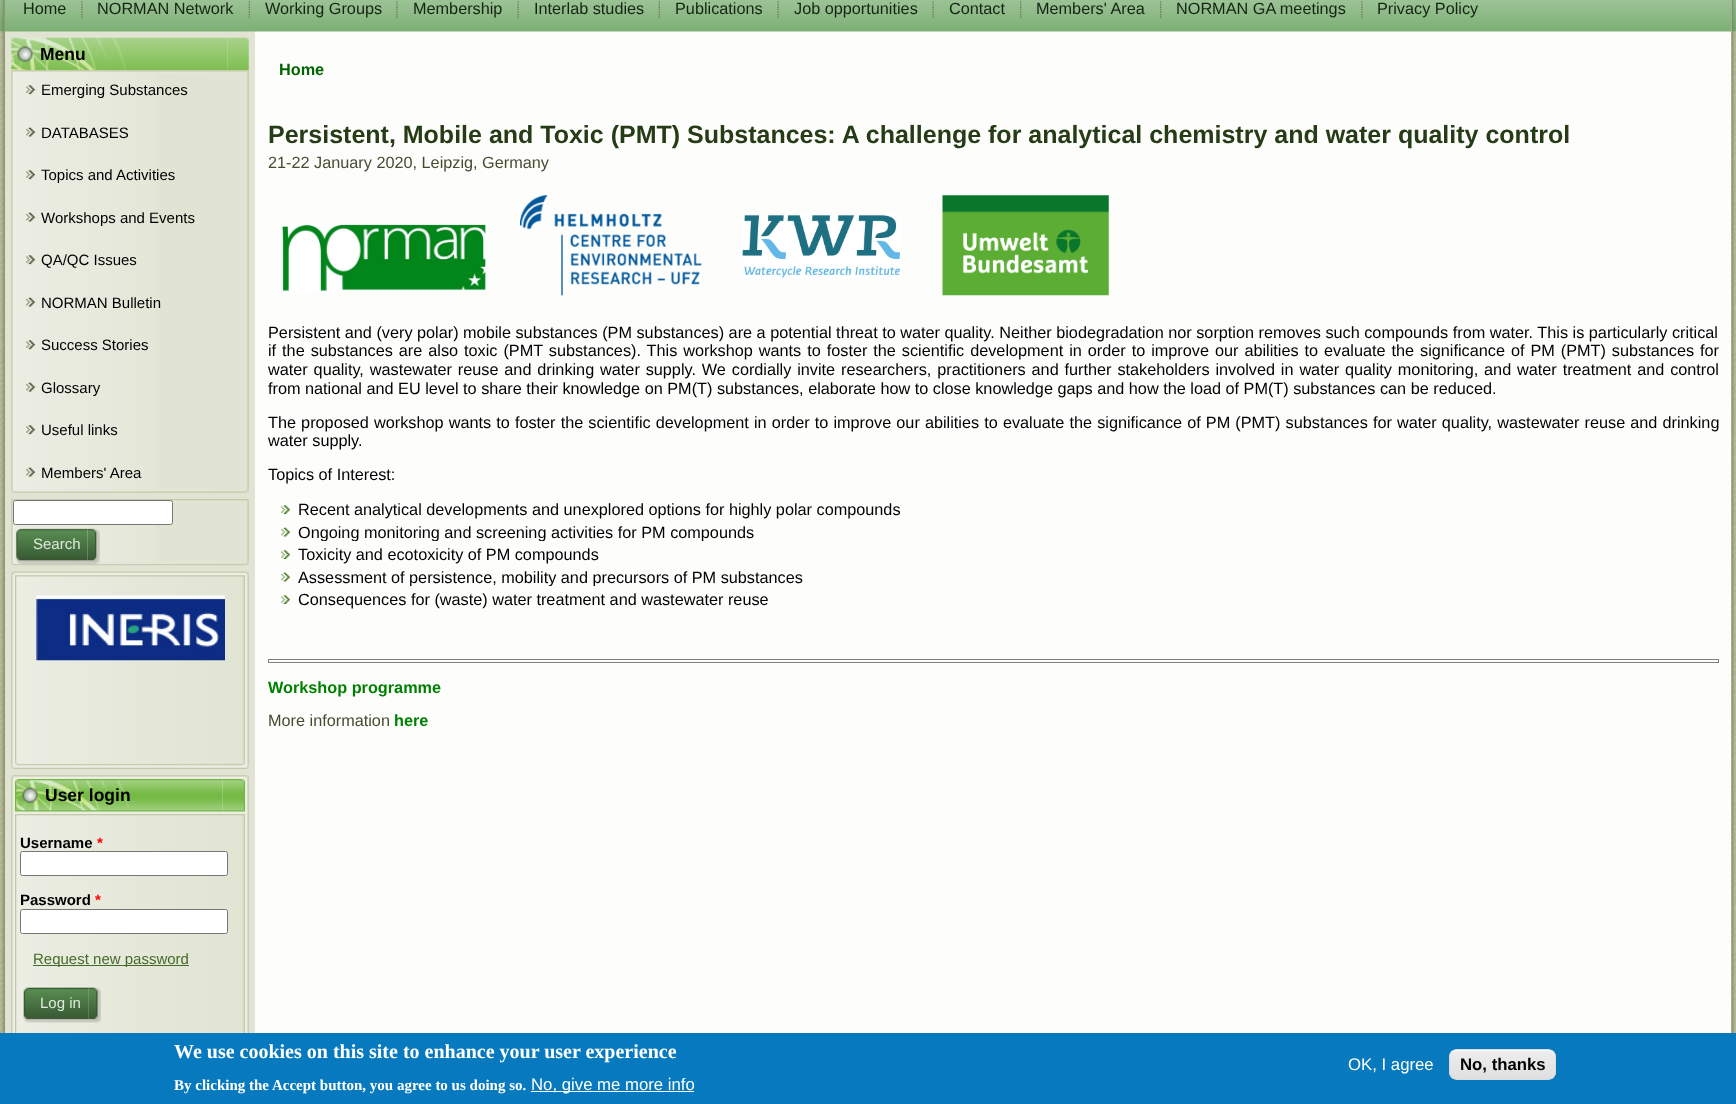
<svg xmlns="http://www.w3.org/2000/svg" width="1736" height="1104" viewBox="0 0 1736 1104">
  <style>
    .t1 { font: 16.25px Liberation Sans; fill: #162414; }
    .t2 { font: bold 17.5px Liberation Sans; fill: #000; }
    .t3 { font: 15px Liberation Sans; fill: #000; }
    .t4 { font: 15px Liberation Sans; fill: #ddebdb; }
    .t5 { font: bold 15px Liberation Sans; fill: #000; }
    .t6 { font: bold 15px Liberation Sans; fill: #f00; }
    .t7 { font: 15px Liberation Sans; fill: #446c28; }
    .t8 { font: bold 16.25px Liberation Sans; fill: #006400; }
    .t9 { font: bold 25px Liberation Sans; fill: #263c16; }
    .t10 { font: 16.25px Liberation Sans; fill: #474b30; }
    .t11 { font: 16.25px Liberation Sans; fill: #000; }
    .t12 { font: bold 16.25px Liberation Sans; fill: #008000; }
    .t13 { font: bold 20px Liberation Serif; fill: #fff; }
    .t14 { font: bold 15px Liberation Serif; fill: #fff; }
    .t15 { font: 16.75px Liberation Sans; fill: #fff; }
    .t16 { font: bold 16.75px Liberation Sans; fill: #000; }
  </style>
  <defs>
    <clipPath id="clip1"><rect x="281" y="523" width="1438" height="18"/></clipPath>
    <clipPath id="clip2"><rect x="281" y="568" width="1438" height="18"/></clipPath>
    <clipPath id="clip3"><rect x="1449" y="1049" width="107" height="31" rx="8"/></clipPath>
    <linearGradient id="g1" gradientUnits="userSpaceOnUse" x1="1503" y1="1050" x2="1503" y2="1079"><stop offset="0.05" stop-color="#ededed"/><stop offset="1" stop-color="#dfdfdf"/></linearGradient>
  </defs>
  <rect width="100%" height="100%" fill="#fff"/>
  <image x="0" y="31" width="1736" height="1002" href="images/1.png"/>
  <image x="0" y="0" width="1736" height="32" href="images/2.png"/>
  <image x="0" y="0" width="1720" height="1033" href="images/3.png"/>
  <image x="1720" y="0" width="16" height="1033" href="images/4.png"/>
  <rect x="5" y="31" width="250" height="1002" fill="#e1e3d3"/>
  <image x="5" y="0" width="1727" height="32" href="images/5.png"/>
  <text x="23" y="14" class="t1">Home</text>
  <image x="81" y="1" width="2" height="17" href="images/6.png"/>
  <text x="97" y="14" class="t1">NORMAN Network</text>
  <image x="248" y="1" width="2" height="17" href="images/7.png"/>
  <text x="265" y="14" class="t1">Working Groups</text>
  <image x="396" y="1" width="2" height="17" href="images/6.png"/>
  <text x="413" y="14" class="t1">Membership</text>
  <image x="517" y="1" width="2" height="17" href="images/8.png"/>
  <text x="534" y="14" class="t1">Interlab studies</text>
  <image x="658" y="1" width="2" height="17" href="images/7.png"/>
  <text x="675" y="14" class="t1">Publications</text>
  <image x="777" y="1" width="2" height="17" href="images/8.png"/>
  <text x="794" y="14" class="t1">Job opportunities</text>
  <image x="932" y="1" width="2" height="17" href="images/8.png"/>
  <text x="949" y="14" class="t1">Contact</text>
  <image x="1020" y="1" width="2" height="17" href="images/9.png"/>
  <text x="1036" y="14" class="t1">Members' Area</text>
  <image x="1160" y="1" width="2" height="17" href="images/9.png"/>
  <text x="1176" y="14" class="t1">NORMAN GA meetings</text>
  <image x="1361" y="1" width="2" height="17" href="images/6.png"/>
  <text x="1377" y="14" class="t1">Privacy Policy</text>
  <image x="11" y="37" width="217" height="34" href="images/10.png"/>
  <image x="227" y="37" width="22" height="34" href="images/11.png"/>
  <text x="40" y="60" class="t2">Menu</text>
  <image x="11" y="70" width="234" height="423" href="images/12.png"/>
  <image x="11" y="70" width="234" height="4" href="images/13.png"/>
  <image x="247" y="74" width="2" height="415" href="images/17.png"/>
  <image x="245" y="70" width="4" height="423" href="images/14.png"/>
  <image x="245" y="70" width="4" height="4" href="images/15.png"/>
  <image x="11" y="74" width="145" height="415" href="images/16.png"/>
  <image x="26" y="85" width="10" height="10" href="images/18.png"/>
  <text x="41" y="95" class="t3">Emerging Substances</text>
  <image x="26" y="127" width="10" height="10" href="images/19.png"/>
  <text x="41" y="138" class="t3">DATABASES</text>
  <image x="26" y="170" width="10" height="10" href="images/18.png"/>
  <text x="41" y="180" class="t3">Topics and Activities</text>
  <image x="26" y="212" width="10" height="10" href="images/19.png"/>
  <text x="41" y="223" class="t3">Workshops and Events</text>
  <image x="26" y="255" width="10" height="10" href="images/18.png"/>
  <text x="41" y="265" class="t3">QA/QC Issues</text>
  <image x="26" y="297" width="10" height="10" href="images/19.png"/>
  <text x="41" y="308" class="t3">NORMAN Bulletin</text>
  <image x="26" y="340" width="10" height="10" href="images/18.png"/>
  <text x="41" y="350" class="t3">Success Stories</text>
  <image x="26" y="382" width="10" height="10" href="images/20.png"/>
  <text x="41" y="393" class="t3">Glossary</text>
  <image x="26" y="425" width="10" height="10" href="images/18.png"/>
  <text x="41" y="435" class="t3">Useful links</text>
  <image x="26" y="467" width="10" height="10" href="images/19.png"/>
  <text x="41" y="478" class="t3">Members' Area</text>
  <image x="11" y="499" width="234" height="67" href="images/21.png"/>
  <image x="11" y="499" width="1" height="4" href="images/22.png"/>
  <image x="247" y="502" width="2" height="60" href="images/26.png"/>
  <image x="245" y="499" width="4" height="66" href="images/23.png"/>
  <image x="248" y="499" width="1" height="4" href="images/24.png"/>
  <image x="11" y="503" width="145" height="59" href="images/25.png"/>
  <rect x="13.5" y="500.5" width="159" height="24" rx="2" fill="#fff" stroke="#767676"/>
  <image x="15" y="528" width="73" height="36" href="images/27.png"/>
  <image x="87" y="528" width="13" height="36" href="images/28.png"/>
  <text x="33" y="549" class="t4">Search</text>
  <image x="11" y="571" width="234" height="198" href="images/29.png"/>
  <image x="11" y="571" width="234" height="5" href="images/30.png"/>
  <image x="245" y="575" width="4" height="191" href="images/41.png"/>
  <image x="245" y="571" width="4" height="198" href="images/31.png"/>
  <image x="245" y="571" width="4" height="4" href="images/32.png"/>
  <image x="11" y="575" width="234" height="190" href="images/33.png"/>
  <image x="15" y="575" width="227" height="191" href="images/34.png"/>
  <image x="15" y="575" width="227" height="2" href="images/35.png"/>
  <image x="15" y="579" width="227" height="183" href="images/38.png"/>
  <image x="241" y="579" width="4" height="183" href="images/39.png"/>
  <image x="241" y="575" width="4" height="190" href="images/36.png"/>
  <image x="241" y="575" width="4" height="2" href="images/37.png"/>
  <image x="36" y="595" width="189" height="66" href="images/40.png"/>
  <image x="11" y="775" width="234" height="4" href="images/42.png"/>
  <image x="11" y="775" width="234" height="4" href="images/43.png"/>
  <image x="245" y="775" width="4" height="4" href="images/44.png"/>
  <image x="245" y="775" width="4" height="4" href="images/45.png"/>
  <image x="11" y="779" width="234" height="254" href="images/46.png"/>
  <image x="245" y="779" width="4" height="254" href="images/47.png"/>
  <image x="15" y="779" width="208" height="33" href="images/48.png"/>
  <image x="222" y="779" width="23" height="33" href="images/49.png"/>
  <text x="45" y="801" class="t2">User login</text>
  <image x="15" y="814" width="227" height="4" href="images/50.png"/>
  <image x="15" y="814" width="227" height="4" href="images/51.png"/>
  <image x="15" y="818" width="227" height="215" href="images/54.png"/>
  <image x="241" y="817" width="4" height="216" href="images/55.png"/>
  <image x="241" y="814" width="4" height="4" href="images/52.png"/>
  <image x="241" y="814" width="4" height="4" href="images/53.png"/>
  <text x="20" y="848" class="t5">Username</text>
  <text x="97" y="848" class="t6">*</text>
  <rect x="20.5" y="851.5" width="207" height="24" rx="2" fill="#fff" stroke="#767676"/>
  <text x="20" y="905" class="t5">Password</text>
  <text x="95" y="905" class="t6">*</text>
  <rect x="20.5" y="909.5" width="207" height="24" rx="2" fill="#fff" stroke="#767676"/>
  <rect x="33" y="965" width="156" height="1" fill="#446c28"/>
  <text x="33" y="964" class="t7">Request new password</text>
  <image x="23" y="987" width="66" height="36" href="images/56.png"/>
  <image x="88" y="987" width="13" height="36" href="images/57.png"/>
  <text x="40" y="1008" class="t4">Log in</text>
  <text x="279" y="75" class="t8">Home</text>
  <text x="268" y="143" class="t9">Persistent, Mobile and Toxic (PMT) Substances: A challenge for analytical chemistry and water quality control</text>
  <text x="268" y="168" class="t10">21-22 January 2020, Leipzig, Germany</text>
  <image x="282" y="224" width="204" height="68" href="images/58.png"/>
  <image x="520" y="195" width="182" height="101" href="images/59.png"/>
  <image x="742" y="214" width="159" height="64" href="images/60.png"/>
  <image x="942" y="195" width="167" height="101" href="images/61.png"/>
  <text x="268" y="338" class="t11">Persistent and (very polar) mobile substances (PM substances) are a potential threat to water quality. Neither biodegradation nor sorption removes such compounds from water. This is particularly critical</text>
  <text x="268" y="356" word-spacing="1.45" class="t11">if the substances are also toxic (PMT substances). This workshop wants to foster the scientific development in order to improve our abilities to evaluate the significance of PM (PMT) substances for</text>
  <text x="268" y="375" word-spacing="1.35" class="t11">water quality, wastewater reuse and drinking water supply. We cordially invite researchers, practitioners and further stakeholders involved in water quality monitoring, and water treatment and control</text>
  <text x="268" y="394" class="t11">from national and EU level to share their knowledge on PM(T) substances, elaborate how to close knowledge gaps and how the load of PM(T) substances can be reduced.</text>
  <text x="268" y="428" word-spacing="0.6" class="t11">The proposed workshop wants to foster the scientific development in order to improve our abilities to evaluate the significance of PM (PMT) substances for water quality, wastewater reuse and drinking</text>
  <text x="268" y="446" class="t11">water supply.</text>
  <text x="268" y="480" class="t11">Topics of Interest:</text>
  <image x="281" y="505" width="9" height="9" href="images/62.png"/>
  <text x="298" y="515" class="t11">Recent analytical developments and unexplored options for highly polar compounds</text>
  <image x="281" y="527" width="9" height="10" href="images/63.png"/>
  <g clip-path="url(#clip1)">
    <text x="298" y="538" class="t11">Ongoing monitoring and screening activities for PM compounds</text>
  </g>
  <image x="281" y="550" width="9" height="9" href="images/62.png"/>
  <text x="298" y="560" class="t11">Toxicity and ecotoxicity of PM compounds</text>
  <image x="281" y="572" width="9" height="10" href="images/63.png"/>
  <g clip-path="url(#clip2)">
    <text x="298" y="583" class="t11">Assessment of persistence, mobility and precursors of PM substances</text>
  </g>
  <image x="281" y="595" width="9" height="9" href="images/62.png"/>
  <text x="298" y="605" class="t11">Consequences for (waste) water treatment and wastewater reuse</text>
  <rect x="268.5" y="659.5" width="1450" height="3" fill="none" stroke="#808080"/>
  <text x="268" y="693" class="t12">Workshop programme</text>
  <text x="268" y="726" class="t10">More information</text>
  <text x="394" y="726" class="t12">here</text>
  <rect x="0" y="1033" width="1736" height="71" fill="#0779bf"/>
  <text x="174" y="1058" class="t13">We use cookies on this site to enhance your user experience</text>
  <text x="174" y="1090" class="t14">By clicking the Accept button, you agree to us doing so.</text>
  <rect x="531" y="1091" width="163" height="1" fill="#fff"/>
  <text x="531" y="1090" class="t15">No, give me more info</text>
  <text x="1348" y="1070" class="t15">OK, I agree</text>
  <g clip-path="url(#clip3)">
    <rect x="1449" y="1050" width="107" height="29" fill="url(#g1)"/>
  </g>
  <path d="M1456 1051H1549C1552 1051 1555 1054 1555 1058C1555 1046 1543 1050 1534 1050H1472C1462 1050 1450 1046 1450 1058C1450 1054 1453 1051 1456 1051Z" fill="#fff"/>
  <rect x="1449.5" y="1049.5" width="106" height="30" rx="7.5" fill="none" stroke="#dcdcdc"/>
  <text x="1460" y="1070" class="t16">No, thanks</text>
</svg>
